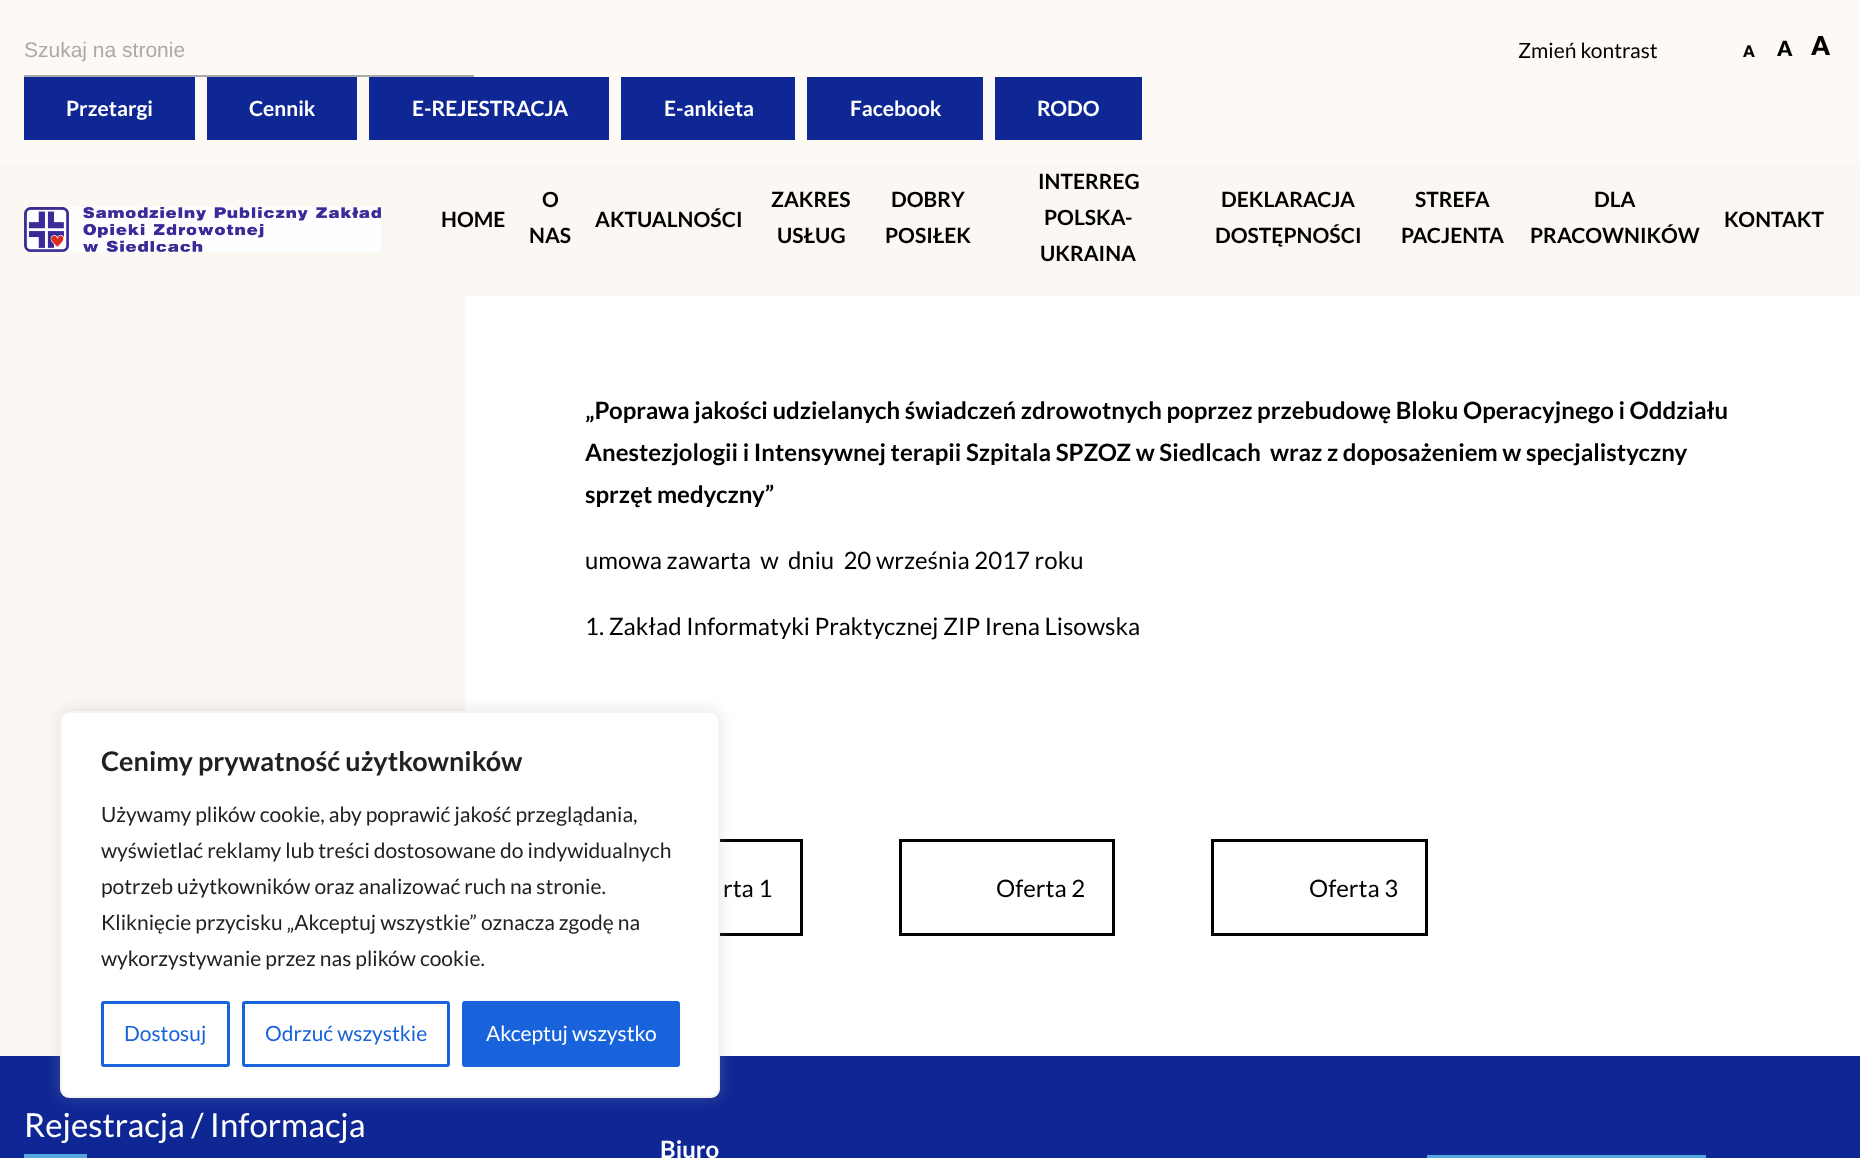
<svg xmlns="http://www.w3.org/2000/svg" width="1860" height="1158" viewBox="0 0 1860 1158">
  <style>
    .t1 { font: 21px Liberation Sans; fill: #aaa; }
    .t2 { font: 21px Lato; fill: #000; }
    .t3 { font: 900 16px Lato; fill: #000; }
    .t4 { font: 900 21px Lato; fill: #000; }
    .t5 { font: 900 26px Lato; fill: #000; }
    .t6 { font: bold 21px Lato; fill: #fff; }
    .t7 { font: bold 21px Lato; fill: #000; }
    .t8 { font: bold 24px Lato; fill: #000; }
    .t9 { font: 24px Lato; fill: #000; }
    .t10 { font: 33px Lato; fill: #fff; }
    .t11 { font: bold 24px Lato; fill: #fff; }
    .t12 { font: bold 27px Lato; fill: #212121; }
    .t13 { font: 21px Lato; fill: #212121; }
    .t14 { font: 21px Lato; fill: #1863dc; }
    .t15 { font: 21px Lato; fill: #fff; }
  </style>
  <rect width="100%" height="100%" fill="#fff"/>
  <rect x="0" y="0" width="1860" height="164" fill="#fdfaf6"/>
  <rect x="24" y="75" width="450" height="2" fill="#aaa"/>
  <text x="24" y="57" class="t1">Szukaj na stronie</text>
  <text x="1518" y="58" class="t2">Zmień kontrast</text>
  <text x="1743" y="57" class="t3">A</text>
  <text x="1777" y="56" class="t4">A</text>
  <text x="1811" y="55" class="t5">A</text>
  <rect x="24" y="77" width="171" height="63" fill="#0e2794"/>
  <text x="66" y="116" class="t6">Przetargi</text>
  <rect x="207" y="77" width="150" height="63" fill="#0e2794"/>
  <text x="249" y="116" class="t6">Cennik</text>
  <rect x="369" y="77" width="240" height="63" fill="#0e2794"/>
  <text x="412" y="116" class="t6">E-REJESTRACJA</text>
  <rect x="621" y="77" width="174" height="63" fill="#0e2794"/>
  <text x="664" y="116" class="t6">E-ankieta</text>
  <rect x="807" y="77" width="176" height="63" fill="#0e2794"/>
  <text x="850" y="116" class="t6">Facebook</text>
  <rect x="995" y="77" width="147" height="63" fill="#0e2794"/>
  <text x="1037" y="116" class="t6">RODO</text>
  <rect x="0" y="164" width="1860" height="132" fill="#fbf7f2"/>
  <image x="24" y="207" width="357" height="45" href="images/1.png"/>
  <text x="441" y="227" class="t7">HOME</text>
  <text x="542" y="207" class="t7">O</text>
  <text x="529" y="243" class="t7">NAS</text>
  <text x="595" y="227" class="t7">AKTUALNOŚCI</text>
  <text x="771" y="207" class="t7">ZAKRES</text>
  <text x="777" y="243" class="t7">USŁUG</text>
  <text x="891" y="207" class="t7">DOBRY</text>
  <text x="885" y="243" class="t7">POSIŁEK</text>
  <text x="1038" y="189" class="t7">INTERREG</text>
  <text x="1044" y="225" class="t7">POLSKA-</text>
  <text x="1040" y="261" class="t7">UKRAINA</text>
  <text x="1221" y="207" class="t7">DEKLARACJA</text>
  <text x="1215" y="243" class="t7">DOSTĘPNOŚCI</text>
  <text x="1415" y="207" class="t7">STREFA</text>
  <text x="1401" y="243" class="t7">PACJENTA</text>
  <text x="1594" y="207" class="t7">DLA</text>
  <text x="1530" y="243" class="t7">PRACOWNIKÓW</text>
  <text x="1724" y="227" class="t7">KONTAKT</text>
  <rect x="0" y="296" width="465" height="760" fill="#fbf7f2"/>
  <text x="585" y="419" class="t8">„Poprawa jakości udzielanych świadczeń zdrowotnych poprzez przebudowę Bloku Operacyjnego i Oddziału</text>
  <text x="585" y="461" class="t8" xml:space="preserve">Anestezjologii i Intensywnej terapii Szpitala SPZOZ w Siedlcach  wraz z doposażeniem w specjalistyczny</text>
  <text x="585" y="503" class="t8">sprzęt medyczny”</text>
  <text x="585" y="569" class="t9" xml:space="preserve">umowa zawarta  w  dniu  20 września 2017 roku</text>
  <text x="585" y="635" class="t9">1. Zakład Informatyki Praktycznej ZIP Irena Lisowska</text>
  <rect x="586.5" y="840.5" width="215" height="94" fill="none" stroke="#000" stroke-width="3"/>
  <text x="723" y="897" class="t9">rta 1</text>
  <rect x="900.5" y="840.5" width="213" height="94" fill="none" stroke="#000" stroke-width="3"/>
  <text x="996" y="897" class="t9">Oferta 2</text>
  <rect x="1212.5" y="840.5" width="214" height="94" fill="none" stroke="#000" stroke-width="3"/>
  <text x="1309" y="897" class="t9">Oferta 3</text>
  <rect x="0" y="1056" width="1860" height="102" fill="#0e2794"/>
  <text x="24" y="1137" class="t10">Rejestracja / Informacja</text>
  <rect x="24" y="1154" width="63" height="4" fill="#54a6df"/>
  <text x="660" y="1158" class="t11">Biuro</text>
  <rect x="1427" y="1155" width="279" height="3" fill="#54a6df"/>
  <rect x="60" y="710" width="660" height="387" rx="9" fill="#acabab4d" filter="blur(7.5px)"/>
  <rect x="61" y="712" width="658" height="385" rx="8" fill="#fff" stroke="#f4f4f4" stroke-width="2"/>
  <text x="101" y="771" class="t12">Cenimy prywatność użytkowników</text>
  <text x="101" y="822" class="t13">Używamy plików cookie, aby poprawić jakość przeglądania,</text>
  <text x="101" y="858" class="t13">wyświetlać reklamy lub treści dostosowane do indywidualnych</text>
  <text x="101" y="894" class="t13">potrzeb użytkowników oraz analizować ruch na stronie.</text>
  <text x="101" y="930" class="t13">Kliknięcie przycisku „Akceptuj wszystkie” oznacza zgodę na</text>
  <text x="101" y="966" class="t13">wykorzystywanie przez nas plików cookie.</text>
  <rect x="102.5" y="1002.5" width="126" height="63" rx="1.5" fill="none" stroke="#1863dc" stroke-width="3"/>
  <text x="124" y="1041" class="t14">Dostosuj</text>
  <rect x="243.5" y="1002.5" width="205" height="63" rx="1.5" fill="none" stroke="#1863dc" stroke-width="3"/>
  <text x="265" y="1041" class="t14">Odrzuć wszystkie</text>
  <rect x="463.5" y="1002.5" width="215" height="63" rx="1.5" fill="#1863dc" stroke="#1863dc" stroke-width="3"/>
  <text x="486" y="1041" class="t15">Akceptuj wszystko</text>
</svg>
